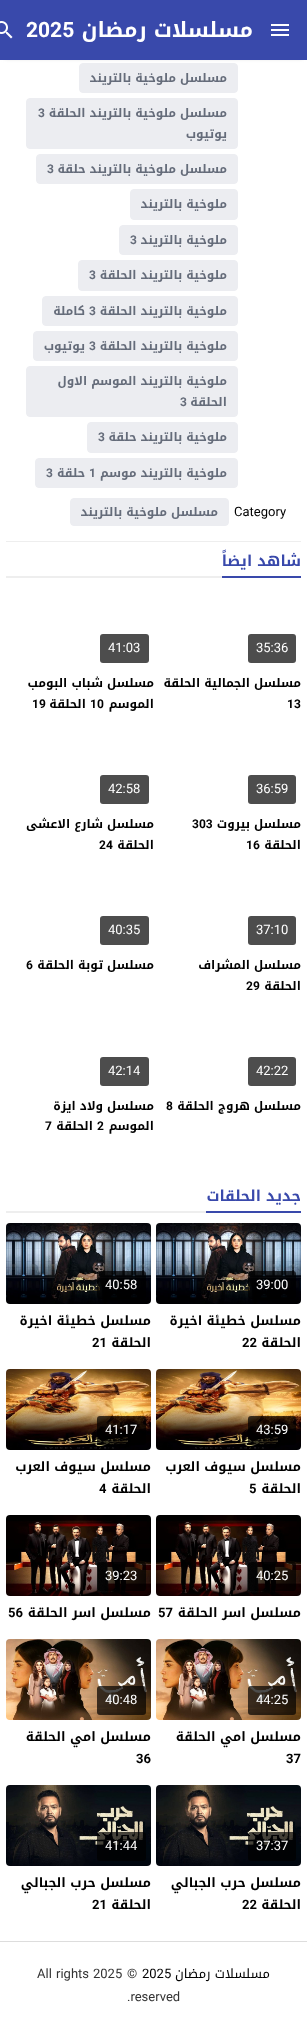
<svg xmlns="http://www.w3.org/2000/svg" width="307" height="2024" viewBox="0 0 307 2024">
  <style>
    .t1 { font: bold 21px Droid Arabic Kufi; direction: rtl; fill: #fff; }
    .t2 { font: bold 21px Roboto; fill: #fff; }
    .t3 { font: bold 12px Droid Arabic Kufi; direction: rtl; fill: #656c7a; }
    .t4 { font: bold 12px Roboto; fill: #656c7a; }
    .t5 { font: 13px Roboto; fill: #000; }
    .t6 { font: bold 15px Droid Arabic Kufi; direction: rtl; fill: #3949ab; }
    .t7 { font: 13px Roboto; fill: #fff; }
    .t8 { font: bold 12px Droid Arabic Kufi; direction: rtl; fill: #000; }
    .t9 { font: bold 12px Roboto; fill: #000; }
    .t10 { font: bold 13px Droid Arabic Kufi; direction: rtl; fill: #000; }
    .t11 { font: bold 13px Roboto; fill: #000; }
    .t12 { font: 13px Droid Arabic Kufi; direction: rtl; fill: #000; }
    .t13 { font: 13px Roboto; fill: #333; }
  </style>
  <rect width="100%" height="100%" fill="#fff"/>
  <rect x="79.5" y="63.5" width="158" height="29" rx="3.5" fill="#ecedf1" stroke="#ecedf1"/>
  <rect x="5" y="7" width="297" height="50" fill="#999" filter="blur(2.5px)"/>
  <rect x="0" y="0" width="307" height="60" fill="#3949ab"/>
  <image x="271" y="24" width="18" height="12" href="images/1.png"/>
  <text x="253" y="37" class="t1">مسلسلات رمضان</text>
  <text x="26" y="37" class="t2">2025</text>
  <image x="0" y="21" width="13" height="18" href="images/2.png"/>
  <rect x="6" y="541" width="295" height="1" fill="#eee"/>
  <text x="227" y="82" class="t3">مسلسل ملوخية بالتريند</text>
  <rect x="26.5" y="98.5" width="211" height="50" rx="3.5" fill="#ecedf1" stroke="#ecedf1"/>
  <text x="227" y="117" class="t3">مسلسل ملوخية بالتريند الحلقة</text>
  <text x="38" y="117" class="t4">3</text>
  <text x="227" y="138" class="t3">يوتيوب</text>
  <rect x="36.5" y="154.5" width="201" height="29" rx="3.5" fill="#ecedf1" stroke="#ecedf1"/>
  <text x="227" y="173" class="t3">مسلسل ملوخية بالتريند حلقة</text>
  <text x="47" y="173" class="t4">3</text>
  <rect x="130.5" y="189.5" width="107" height="30" rx="3.5" fill="#ecedf1" stroke="#ecedf1"/>
  <text x="227" y="208" class="t3">ملوخية بالتريند</text>
  <rect x="119.5" y="225.5" width="118" height="29" rx="3.5" fill="#ecedf1" stroke="#ecedf1"/>
  <text x="227" y="244" class="t3">ملوخية بالتريند</text>
  <text x="130" y="244" class="t4">3</text>
  <rect x="78.5" y="260.5" width="159" height="30" rx="3.5" fill="#ecedf1" stroke="#ecedf1"/>
  <text x="227" y="279" class="t3">ملوخية بالتريند الحلقة</text>
  <text x="89" y="279" class="t4">3</text>
  <rect x="42.5" y="296.5" width="195" height="29" rx="3.5" fill="#ecedf1" stroke="#ecedf1"/>
  <text x="227" y="315" class="t3">ملوخية بالتريند الحلقة</text>
  <text x="89" y="315" class="t4">3</text>
  <text x="85" y="315" class="t3">كاملة</text>
  <rect x="33.5" y="331.5" width="204" height="29" rx="3.5" fill="#ecedf1" stroke="#ecedf1"/>
  <text x="227" y="350" class="t3">ملوخية بالتريند الحلقة</text>
  <text x="89" y="350" class="t4">3</text>
  <text x="85" y="350" class="t3">يوتيوب</text>
  <rect x="26.5" y="366.5" width="211" height="50" rx="3.5" fill="#ecedf1" stroke="#ecedf1"/>
  <text x="227" y="385" class="t3">ملوخية بالتريند الموسم الاول</text>
  <text x="227" y="406" class="t3">الحلقة</text>
  <text x="180" y="406" class="t4">3</text>
  <rect x="87.5" y="422.5" width="150" height="30" rx="3.5" fill="#ecedf1" stroke="#ecedf1"/>
  <text x="227" y="441" class="t3">ملوخية بالتريند حلقة</text>
  <text x="98" y="441" class="t4">3</text>
  <rect x="35.5" y="458.5" width="202" height="29" rx="3.5" fill="#ecedf1" stroke="#ecedf1"/>
  <text x="227" y="477" class="t3">ملوخية بالتريند موسم</text>
  <text x="89" y="477" class="t4">1</text>
  <text x="85" y="477" class="t3">حلقة</text>
  <text x="46" y="477" class="t4">3</text>
  <text x="234" y="516" class="t5">Category</text>
  <rect x="70.5" y="498.5" width="158" height="27" rx="3.5" fill="#ecedf1" stroke="#ecedf1"/>
  <text x="218" y="516" class="t3">مسلسل ملوخية بالتريند</text>
  <rect x="6" y="576" width="216" height="2" fill="#eee"/>
  <rect x="222" y="576" width="79" height="2" fill="#3949ab"/>
  <text x="301" y="566" class="t6">شاهد ايضاً</text>
  <rect x="248" y="634" width="48" height="29" rx="3" fill="#4d4d4d"/>
  <text x="256" y="652" class="t7">35:36</text>
  <text x="301" y="687" class="t8">مسلسل الجمالية الحلقة</text>
  <text x="287" y="708" class="t9">13</text>
  <rect x="100" y="634" width="49" height="29" rx="3" fill="#4d4d4d"/>
  <text x="108" y="652" class="t7">41:03</text>
  <text x="154" y="687" class="t8">مسلسل شباب البومب</text>
  <text x="154" y="708" class="t8">الموسم</text>
  <text x="90" y="708" class="t9">10</text>
  <text x="86" y="708" class="t8">الحلقة</text>
  <text x="32" y="708" class="t9">19</text>
  <rect x="248" y="775" width="48" height="29" rx="3" fill="#4d4d4d"/>
  <text x="256" y="793" class="t7">36:59</text>
  <text x="301" y="828" class="t8">مسلسل بيروت</text>
  <text x="192" y="828" class="t9">303</text>
  <text x="301" y="849" class="t8">الحلقة</text>
  <text x="246" y="849" class="t9">16</text>
  <rect x="100" y="775" width="49" height="29" rx="3" fill="#4d4d4d"/>
  <text x="108" y="793" class="t7">42:58</text>
  <text x="154" y="828" class="t8">مسلسل شارع الاعشى</text>
  <text x="154" y="849" class="t8">الحلقة</text>
  <text x="99" y="849" class="t9">24</text>
  <rect x="248" y="916" width="48" height="29" rx="3" fill="#4d4d4d"/>
  <text x="256" y="934" class="t7">37:10</text>
  <text x="301" y="969" class="t8">مسلسل المشراف</text>
  <text x="301" y="990" class="t8">الحلقة</text>
  <text x="246" y="990" class="t9">29</text>
  <rect x="100" y="916" width="49" height="29" rx="3" fill="#4d4d4d"/>
  <text x="108" y="934" class="t7">40:35</text>
  <text x="154" y="969" class="t8">مسلسل توبة الحلقة</text>
  <text x="26" y="969" class="t9">6</text>
  <rect x="248" y="1057" width="48" height="29" rx="3" fill="#4d4d4d"/>
  <text x="256" y="1075" class="t7">42:22</text>
  <text x="301" y="1110" class="t8">مسلسل هروج الحلقة</text>
  <text x="166" y="1110" class="t9">8</text>
  <rect x="100" y="1057" width="49" height="29" rx="3" fill="#4d4d4d"/>
  <text x="108" y="1075" class="t7">42:14</text>
  <text x="154" y="1110" class="t8">مسلسل ولاد ايزة</text>
  <text x="154" y="1130" class="t8">الموسم</text>
  <text x="97" y="1130" class="t9">2</text>
  <text x="93" y="1130" class="t8">الحلقة</text>
  <text x="45" y="1130" class="t9">7</text>
  <rect x="6" y="1211" width="200" height="2" fill="#eee"/>
  <rect x="206" y="1211" width="95" height="2" fill="#3949ab"/>
  <text x="301" y="1201" class="t6">جديد الحلقات</text>
  <image x="156" y="1223" width="145" height="81" href="images/3.png"/>
  <rect x="248" y="1271" width="48" height="28" rx="3" fill="#000000b3"/>
  <text x="256" y="1289" class="t7">39:00</text>
  <text x="301" y="1325" class="t10">مسلسل خطيئة اخيرة</text>
  <text x="301" y="1347" class="t10">الحلقة</text>
  <text x="242" y="1347" class="t11">22</text>
  <image x="6" y="1223" width="145" height="81" href="images/4.png"/>
  <rect x="97" y="1271" width="49" height="28" rx="3" fill="#000000b3"/>
  <text x="105" y="1289" class="t7">40:58</text>
  <text x="151" y="1325" class="t10">مسلسل خطيئة اخيرة</text>
  <text x="151" y="1347" class="t10">الحلقة</text>
  <text x="92" y="1347" class="t11">21</text>
  <image x="156" y="1369" width="145" height="81" href="images/5.png"/>
  <rect x="248" y="1416" width="48" height="29" rx="3" fill="#000000b3"/>
  <text x="256" y="1434" class="t7">43:59</text>
  <text x="301" y="1471" class="t10">مسلسل سيوف العرب</text>
  <text x="301" y="1493" class="t10">الحلقة</text>
  <text x="249" y="1493" class="t11">5</text>
  <image x="6" y="1369" width="145" height="81" href="images/6.png"/>
  <rect x="97" y="1416" width="49" height="29" rx="3" fill="#000000b3"/>
  <text x="105" y="1434" class="t7">41:17</text>
  <text x="151" y="1471" class="t10">مسلسل سيوف العرب</text>
  <text x="151" y="1493" class="t10">الحلقة</text>
  <text x="99" y="1493" class="t11">4</text>
  <image x="156" y="1515" width="145" height="81" href="images/7.png"/>
  <rect x="248" y="1562" width="48" height="29" rx="3" fill="#000000b3"/>
  <text x="256" y="1580" class="t7">40:25</text>
  <text x="301" y="1617" class="t10">مسلسل اسر الحلقة</text>
  <text x="158" y="1617" class="t11">57</text>
  <image x="6" y="1515" width="145" height="81" href="images/8.png"/>
  <rect x="97" y="1562" width="49" height="29" rx="3" fill="#000000b3"/>
  <text x="105" y="1580" class="t7">39:23</text>
  <text x="151" y="1617" class="t10">مسلسل اسر الحلقة</text>
  <text x="8" y="1617" class="t11">56</text>
  <image x="156" y="1639" width="145" height="81" href="images/9.png"/>
  <rect x="248" y="1686" width="48" height="29" rx="3" fill="#000000b3"/>
  <text x="256" y="1704" class="t7">44:25</text>
  <text x="301" y="1741" class="t10">مسلسل امي الحلقة</text>
  <text x="286" y="1763" class="t11">37</text>
  <image x="6" y="1639" width="145" height="81" href="images/10.png"/>
  <rect x="97" y="1686" width="49" height="29" rx="3" fill="#000000b3"/>
  <text x="105" y="1704" class="t7">40:48</text>
  <text x="151" y="1741" class="t10">مسلسل امي الحلقة</text>
  <text x="136" y="1763" class="t11">36</text>
  <image x="156" y="1785" width="145" height="81" href="images/11.png"/>
  <rect x="248" y="1832" width="48" height="29" rx="3" fill="#000000b3"/>
  <text x="256" y="1850" class="t7">37:37</text>
  <text x="301" y="1887" class="t10">مسلسل حرب الجبالي</text>
  <text x="301" y="1909" class="t10">الحلقة</text>
  <text x="242" y="1909" class="t11">22</text>
  <image x="6" y="1785" width="145" height="81" href="images/12.png"/>
  <rect x="97" y="1832" width="49" height="29" rx="3" fill="#000000b3"/>
  <text x="105" y="1850" class="t7">41:44</text>
  <text x="151" y="1887" class="t10">مسلسل حرب الجبالي</text>
  <text x="151" y="1909" class="t10">الحلقة</text>
  <text x="92" y="1909" class="t11">21</text>
  <rect x="0" y="1941" width="307" height="1" fill="#ddd"/>
  <text x="270" y="1978" class="t12">مسلسلات رمضان</text>
  <text x="142" y="1978" class="t5">2025</text>
  <text x="127" y="1978" class="t13">©</text>
  <text x="93" y="1978" class="t13">2025</text>
  <text x="37" y="1978" word-spacing="1" class="t13">All rights</text>
  <text x="127" y="2001" class="t13">.reserved</text>
</svg>
